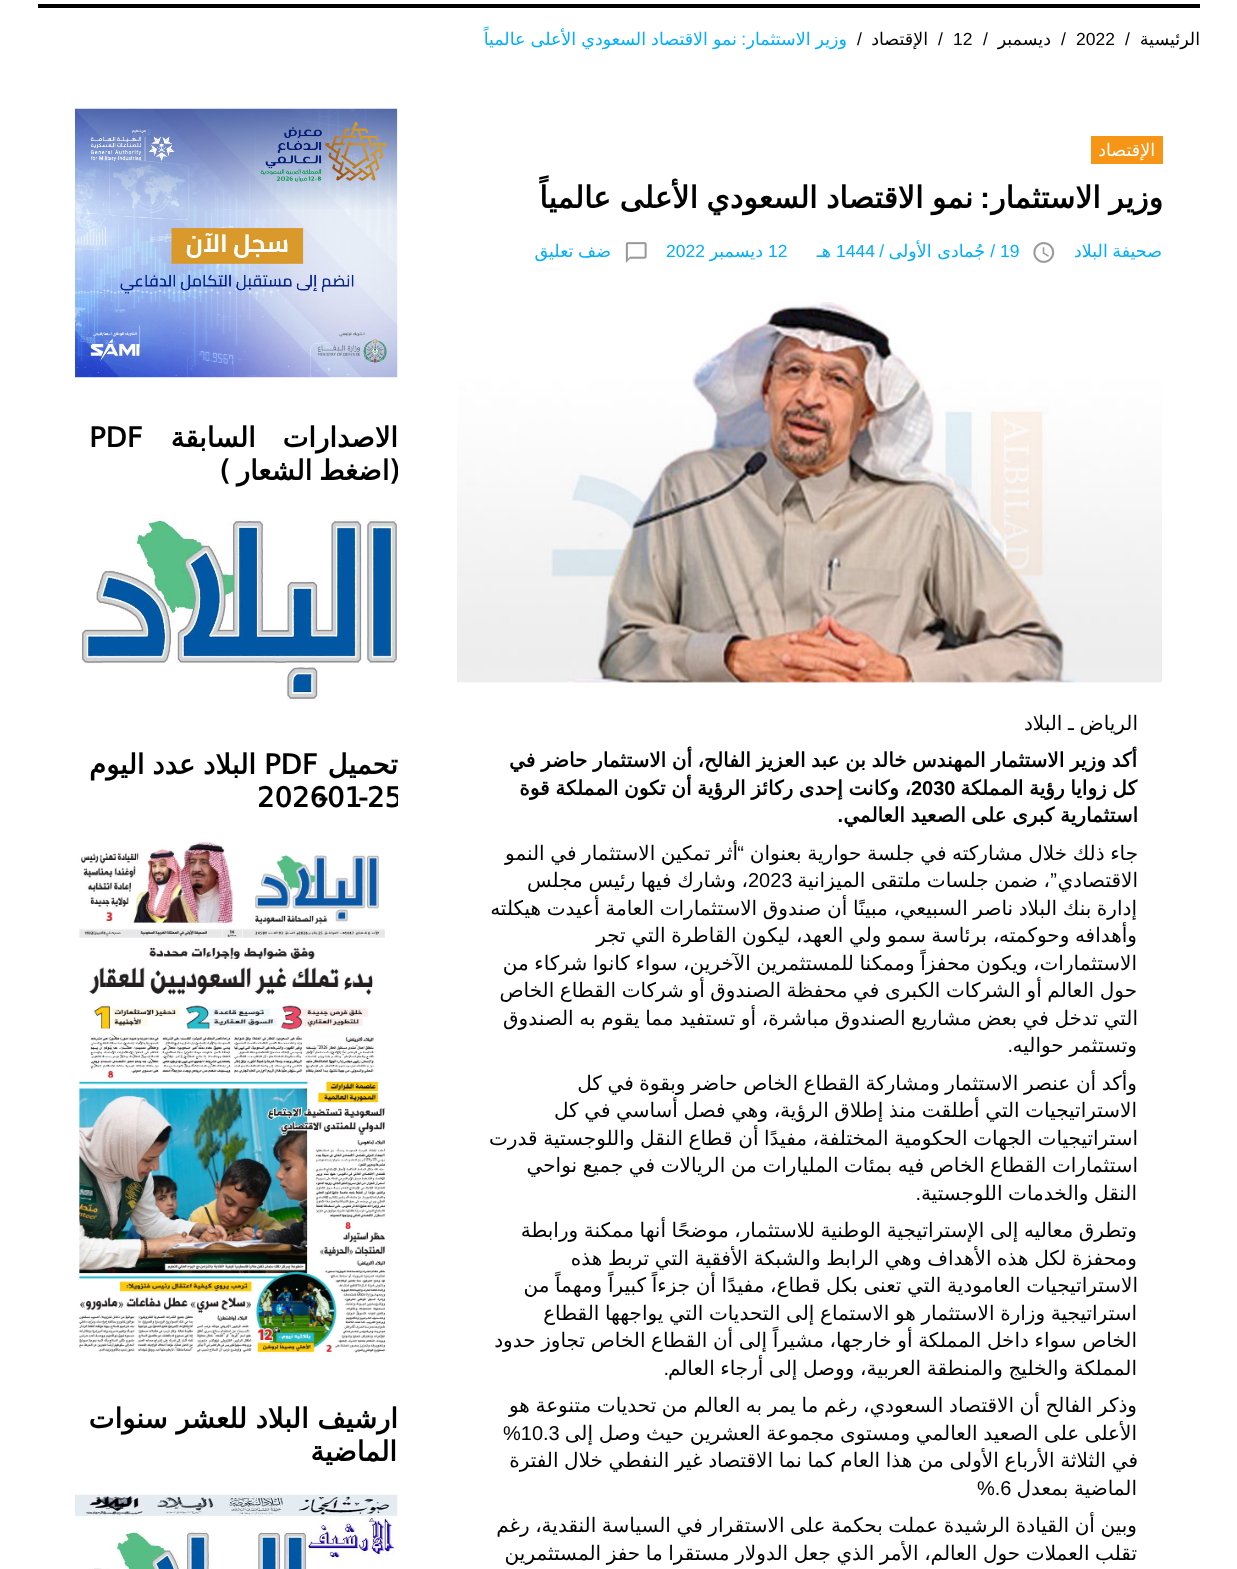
<svg xmlns="http://www.w3.org/2000/svg" width="1237" height="1569" viewBox="0 0 1237 1569">
  <style>
    .t1 { font: 17.5px DejaVu Sans; direction: rtl; fill: #000; }
    .t2 { font: 17.5px Liberation Sans; fill: #000; }
    .t3 { font: 17.5px DejaVu Sans; direction: rtl; fill: #02afff; }
    .t4 { font: 17.5px Liberation Sans; direction: rtl; fill: #02afff; }
    .t5 { font: 17.5px DejaVu Sans; direction: rtl; fill: #fff; }
    .t6 { font: bold 30px DejaVu Sans; direction: rtl; fill: #000; }
    .t7 { font: bold 30px Liberation Sans; direction: rtl; fill: #000; }
    .t8 { font: 17.5px Liberation Sans; fill: #02afff; }
    .t9 { font: 20px DejaVu Sans; direction: rtl; fill: #000; }
    .t10 { font: bold 20px DejaVu Sans; direction: rtl; fill: #000; }
    .t11 { font: bold 20px Liberation Sans; fill: #000; }
    .t12 { font: bold 20px Liberation Sans; direction: rtl; fill: #000; }
    .t13 { font: 20px Liberation Sans; direction: rtl; fill: #000; }
    .t14 { font: 20px Liberation Sans; fill: #000; }
    .t15 { font: bold 27.5px DejaVu Sans; direction: rtl; fill: #000; }
    .t16 { font: bold 27.5px DejaVu Sans; fill: #000; }
  </style>
  <defs>
    <clipPath id="clip1"><rect x="75" y="423" width="323" height="288"/></clipPath>
    <clipPath id="clip2"><rect x="75" y="749" width="323" height="617"/></clipPath>
  </defs>
  <rect width="100%" height="100%" fill="#fff"/>
  <rect x="38" y="4" width="1162" height="4" fill="#000"/>
  <text x="1200" y="45" class="t1">الرئيسية</text>
  <text x="1125" y="45" class="t2">/</text>
  <text x="1076" y="45" class="t2">2022</text>
  <text x="1061" y="45" class="t2">/</text>
  <text x="1051" y="45" class="t1">ديسمبر</text>
  <text x="983" y="45" class="t2">/</text>
  <text x="953" y="45" class="t2">12</text>
  <text x="938" y="45" class="t2">/</text>
  <text x="928" y="45" class="t1">الإقتصاد</text>
  <text x="857" y="45" class="t2">/</text>
  <text x="847" y="45" word-spacing="-0.5" class="t3">وزير الاستثمار</text>
  <text x="746" y="45" class="t4">:</text>
  <text x="737" y="45" word-spacing="-0.5" class="t3">نمو الاقتصاد السعودي الأعلى عالمياً</text>
  <rect x="1091" y="136" width="72" height="28" fill="#f79516"/>
  <text x="1155" y="156" class="t5">الإقتصاد</text>
  <text x="1163" y="208" word-spacing="-1" class="t6">وزير الاستثمار</text>
  <text x="990" y="208" class="t7">:</text>
  <text x="973" y="208" word-spacing="-1" class="t6">نمو الاقتصاد السعودي الأعلى عالمياً</text>
  <text x="1162" y="257" word-spacing="-1" class="t3">صحيفة البلاد</text>
  <image x="1033" y="242" width="22" height="21" href="images/1.png"/>
  <text x="1000" y="257" class="t8">19</text>
  <text x="995" y="257" class="t4">/</text>
  <text x="985" y="257" class="t3">جُمادى اﻷولى</text>
  <text x="884" y="257" class="t4">/</text>
  <text x="836" y="257" class="t8">1444</text>
  <text x="831" y="257" class="t3">هـ</text>
  <text x="768" y="257" class="t8">12</text>
  <text x="763" y="257" class="t3">ديسمبر</text>
  <text x="666" y="257" class="t8">2022</text>
  <image x="625" y="242" width="22" height="21" href="images/2.png"/>
  <text x="611" y="257" word-spacing="-1" class="t3">ضف تعليق</text>
  <image x="457" y="302" width="705" height="381" href="images/3.png"/>
  <text x="1138" y="730" word-spacing="-0.75" class="t9">الرياض ـ البلاد</text>
  <text x="1137" y="767" word-spacing="-0.75" class="t10">أكد وزير الاستثمار المهندس خالد بن عبد العزيز الفالح، أن الاستثمار حاضر في</text>
  <text x="1137" y="795" word-spacing="-0.75" class="t10">كل زوايا رؤية المملكة</text>
  <text x="911" y="795" word-spacing="-0.75" class="t10">، وكانت إحدى ركائز الرؤية أن تكون المملكة قوة</text>
  <text x="911" y="795" class="t11">2030</text>
  <text x="1138" y="822" word-spacing="-0.75" class="t10">استثمارية كبرى على الصعيد العالمي</text>
  <text x="843" y="822" class="t12">.</text>
  <text x="1138" y="860" word-spacing="-0.75" class="t9">جاء ذلك خلال مشاركته في جلسة حوارية بعنوان</text>
  <text x="738" y="860" word-spacing="-0.75" class="t9">أثر تمكين الاستثمار في النمو</text>
  <text x="744" y="860" class="t13">“</text>
  <text x="1138" y="887" class="t9">الاقتصادي</text>
  <text x="1050" y="887" word-spacing="-0.75" class="t9">، ضمن جلسات ملتقى الميزانية</text>
  <text x="1057" y="887" class="t13">”</text>
  <text x="748" y="887" word-spacing="-0.75" class="t9">، وشارك فيها رئيس مجلس</text>
  <text x="748" y="887" class="t14">2023</text>
  <text x="1137" y="915" word-spacing="-0.75" class="t9">إدارة بنك البلاد ناصر السبيعي، مبينًا أن صندوق الاستثمارات العامة أعيدت هيكلته</text>
  <text x="1137" y="942" word-spacing="-0.75" class="t9">وأهدافه وحوكمته، برئاسة سمو ولي العهد، ليكون القاطرة التي تجر</text>
  <text x="1137" y="970" word-spacing="-0.75" class="t9">الاستثمارات، ويكون محفزاً وممكنا للمستثمرين الآخرين، سواء كانوا شركاء من</text>
  <text x="1137" y="997" word-spacing="-0.75" class="t9">حول العالم أو الشركات الكبرى في محفظة الصندوق أو شركات القطاع الخاص</text>
  <text x="1138" y="1025" word-spacing="-0.75" class="t9">التي تدخل في بعض مشاريع الصندوق مباشرة، أو تستفيد مما يقوم به الصندوق</text>
  <text x="1137" y="1052" word-spacing="-0.75" class="t9">وتستثمر حواليه</text>
  <text x="1013" y="1052" class="t13">.</text>
  <text x="1137" y="1090" word-spacing="-0.75" class="t9">وأكد أن عنصر الاستثمار ومشاركة القطاع الخاص حاضر وبقوة في كل</text>
  <text x="1137" y="1117" word-spacing="-0.75" class="t9">الاستراتيجيات التي أطلقت منذ إطلاق الرؤية، وهي فصل أساسي في كل</text>
  <text x="1138" y="1145" word-spacing="-0.75" class="t9">استراتيجيات الجهات الحكومية المختلفة، مفيدًا أن قطاع النقل واللوجستية قدرت</text>
  <text x="1138" y="1172" word-spacing="-0.75" class="t9">استثمارات القطاع الخاص فيه بمئات المليارات من الريالات في جميع نواحي</text>
  <text x="1137" y="1200" word-spacing="-0.75" class="t9">النقل والخدمات اللوجستية</text>
  <text x="921" y="1200" class="t13">.</text>
  <text x="1137" y="1237" word-spacing="-0.75" class="t9">وتطرق معاليه إلى الإستراتيجية الوطنية للاستثمار، موضحًا أنها ممكنة ورابطة</text>
  <text x="1137" y="1265" word-spacing="-0.75" class="t9">ومحفزة لكل هذه الأهداف وهي الرابط والشبكة الأفقية التي تربط هذه</text>
  <text x="1138" y="1292" word-spacing="-0.75" class="t9">الاستراتيجيات العامودية التي تعنى بكل قطاع، مفيدًا أن جزءاً كبيراً ومهماً من</text>
  <text x="1137" y="1320" word-spacing="-0.75" class="t9">استراتيجية وزارة الاستثمار هو الاستماع إلى التحديات التي يواجهها القطاع</text>
  <text x="1137" y="1347" word-spacing="-0.75" class="t9">الخاص سواء داخل المملكة أو خارجها، مشيراً إلى أن القطاع الخاص تجاوز حدود</text>
  <text x="1137" y="1375" word-spacing="-0.75" class="t9">المملكة والخليج والمنطقة العربية، ووصل إلى أرجاء العالم</text>
  <text x="669" y="1375" class="t13">.</text>
  <text x="1137" y="1412" word-spacing="-0.75" class="t9">وذكر الفالح أن الاقتصاد السعودي، رغم ما يمر به العالم من تحديات متنوعة هو</text>
  <text x="1137" y="1440" word-spacing="-0.75" class="t9">الأعلى على الصعيد العالمي ومستوى مجموعة العشرين حيث وصل إلى</text>
  <text x="503" y="1440" class="t14">%10.3</text>
  <text x="1138" y="1467" word-spacing="-0.75" class="t9">في الثلاثة الأرباع الأولى من هذا العام كما نما الاقتصاد غير النفطي خلال الفترة</text>
  <text x="1137" y="1495" word-spacing="-0.75" class="t9">الماضية بمعدل</text>
  <text x="977" y="1495" class="t14">%.6</text>
  <text x="1137" y="1532" word-spacing="-0.75" class="t9">وبين أن القيادة الرشيدة عملت بحكمة على الاستقرار في السياسة النقدية، رغم</text>
  <text x="1137" y="1560" word-spacing="-0.75" class="t9">تقلب العملات حول العالم، الأمر الذي جعل الدولار مستقرا ما حفز المستثمرين</text>
  <image x="75" y="108" width="323" height="270" href="images/4.png"/>
  <text x="398" y="447" word-spacing="18" class="t15">الاصدارات السابقة</text>
  <text x="89" y="447" class="t16">PDF</text>
  <g clip-path="url(#clip1)">
    <text x="400" y="480" word-spacing="-2" class="t15">(اضغط الشعار )</text>
  </g>
  <image x="80" y="514" width="317" height="187" href="images/5.png"/>
  <text x="398" y="774" class="t15">تحميل</text>
  <text x="264" y="774" class="t16">PDF</text>
  <text x="256" y="774" word-spacing="-1" class="t15">البلاد عدد اليوم</text>
  <g clip-path="url(#clip2)">
    <text x="367" y="807" class="t16">25</text>
  </g>
  <text x="327" y="807" class="t16">01</text>
  <text x="257" y="807" class="t16">2026</text>
  <text x="358" y="807" class="t16">-</text>
  <text x="318" y="807" class="t16">-</text>
  <image x="78" y="841" width="308" height="514" href="images/6.png"/>
  <text x="398" y="1428" class="t15">ارشيف البلاد للعشر سنوات</text>
  <text x="397" y="1461" class="t15">الماضية</text>
  <image x="75" y="1494" width="323" height="75" href="images/7.png"/>
</svg>
